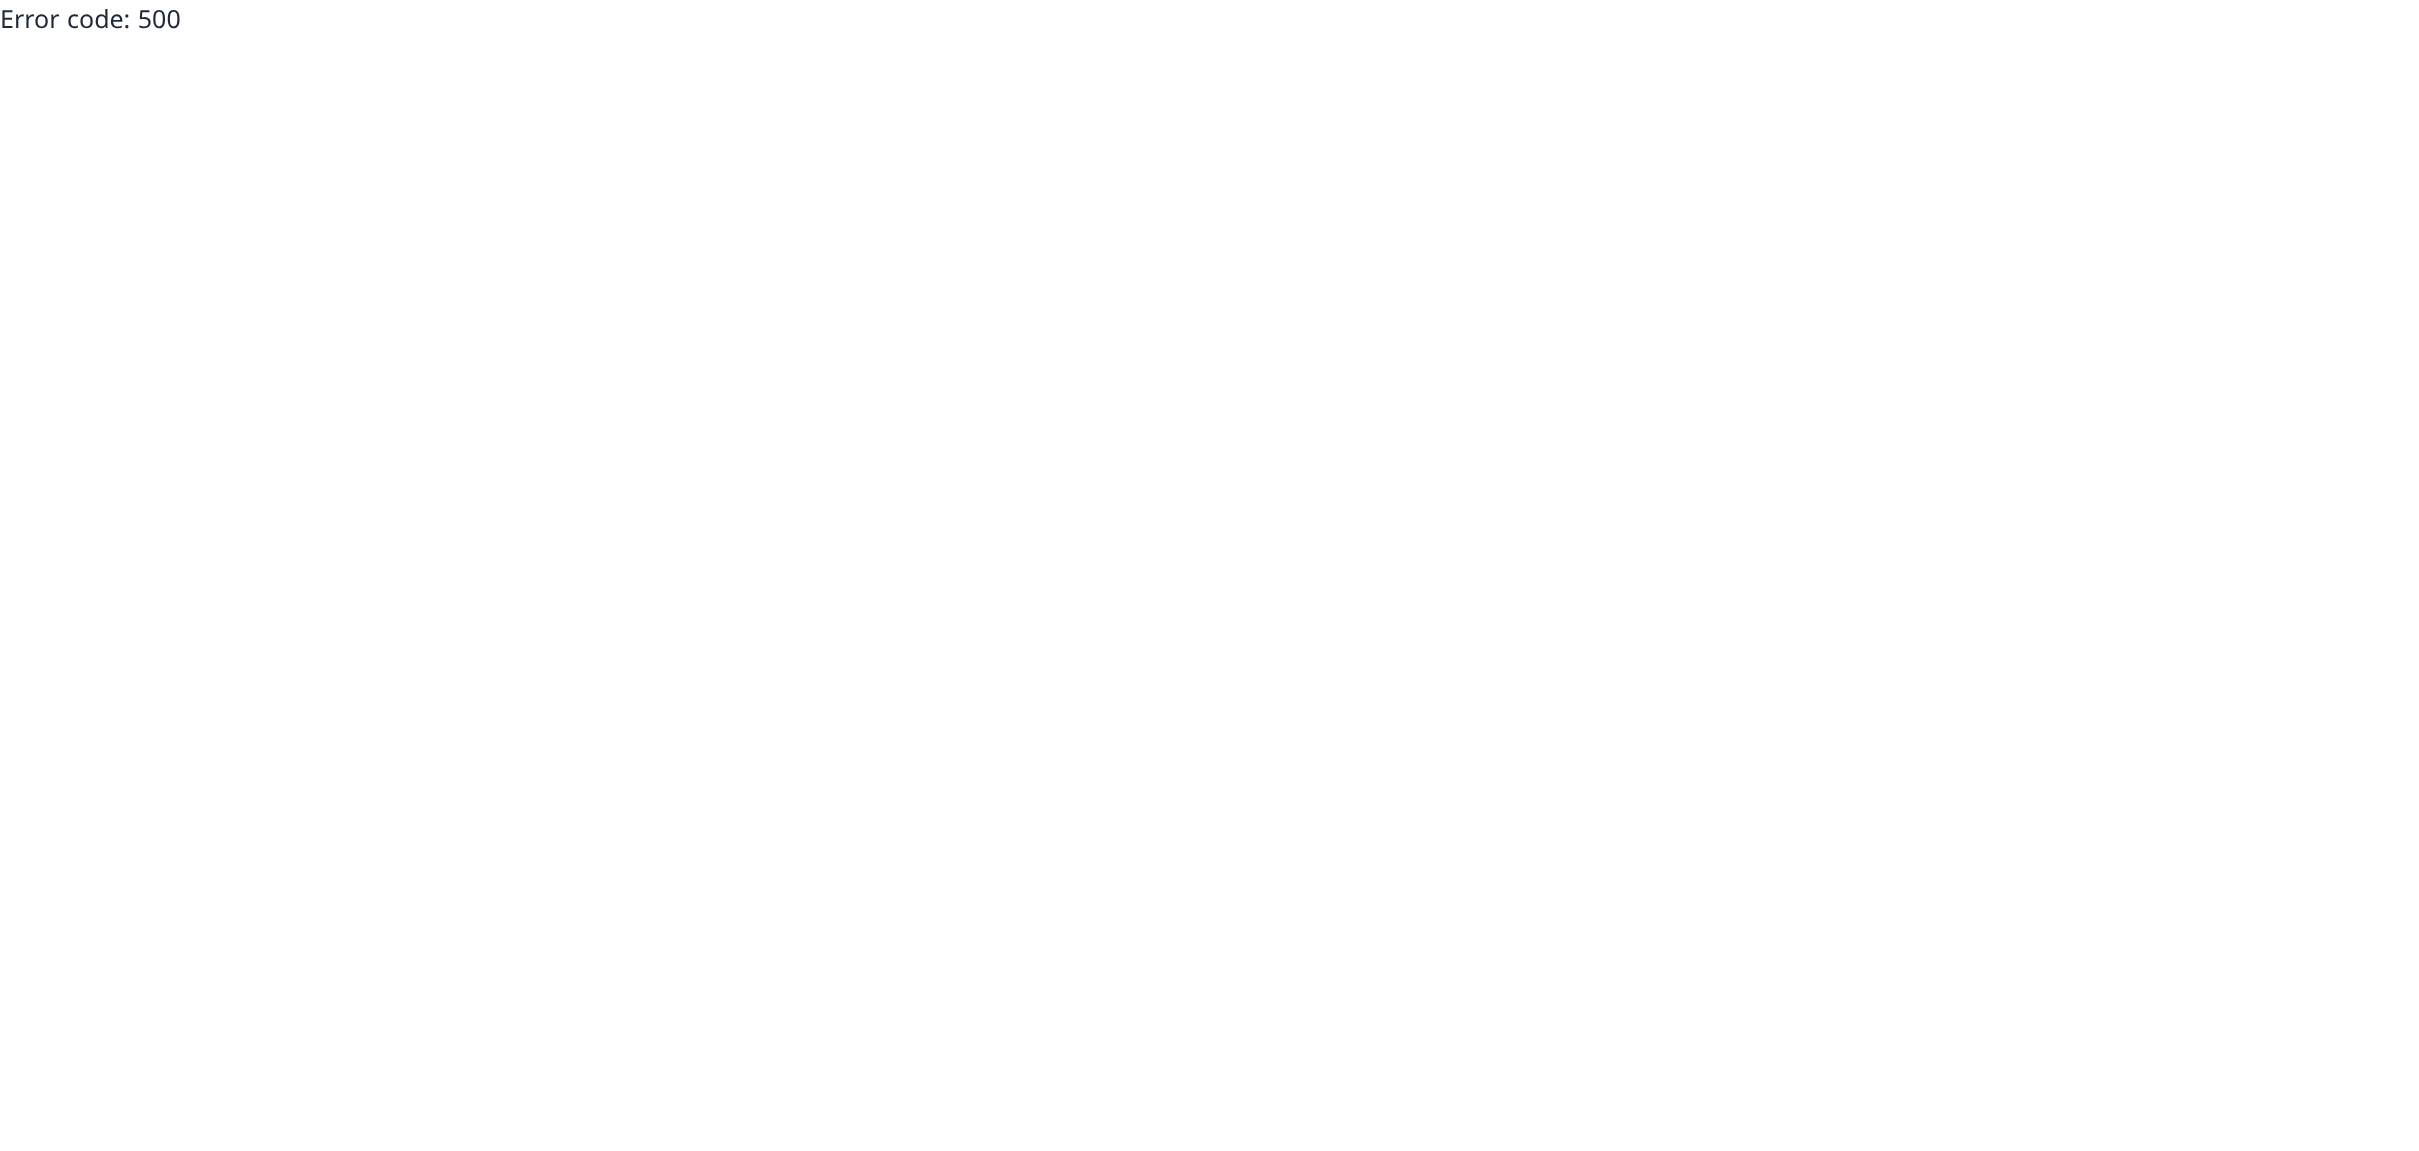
<svg xmlns="http://www.w3.org/2000/svg" width="2419" height="1151" viewBox="0 0 2419 1151">
  <style>
    .t1 { font: 25px Noto Sans; fill: #1f2937; }
  </style>
  <rect width="100%" height="100%" fill="#fff"/>
  <text x="0" y="28" word-spacing="1" class="t1">Error code: 500</text>
</svg>
